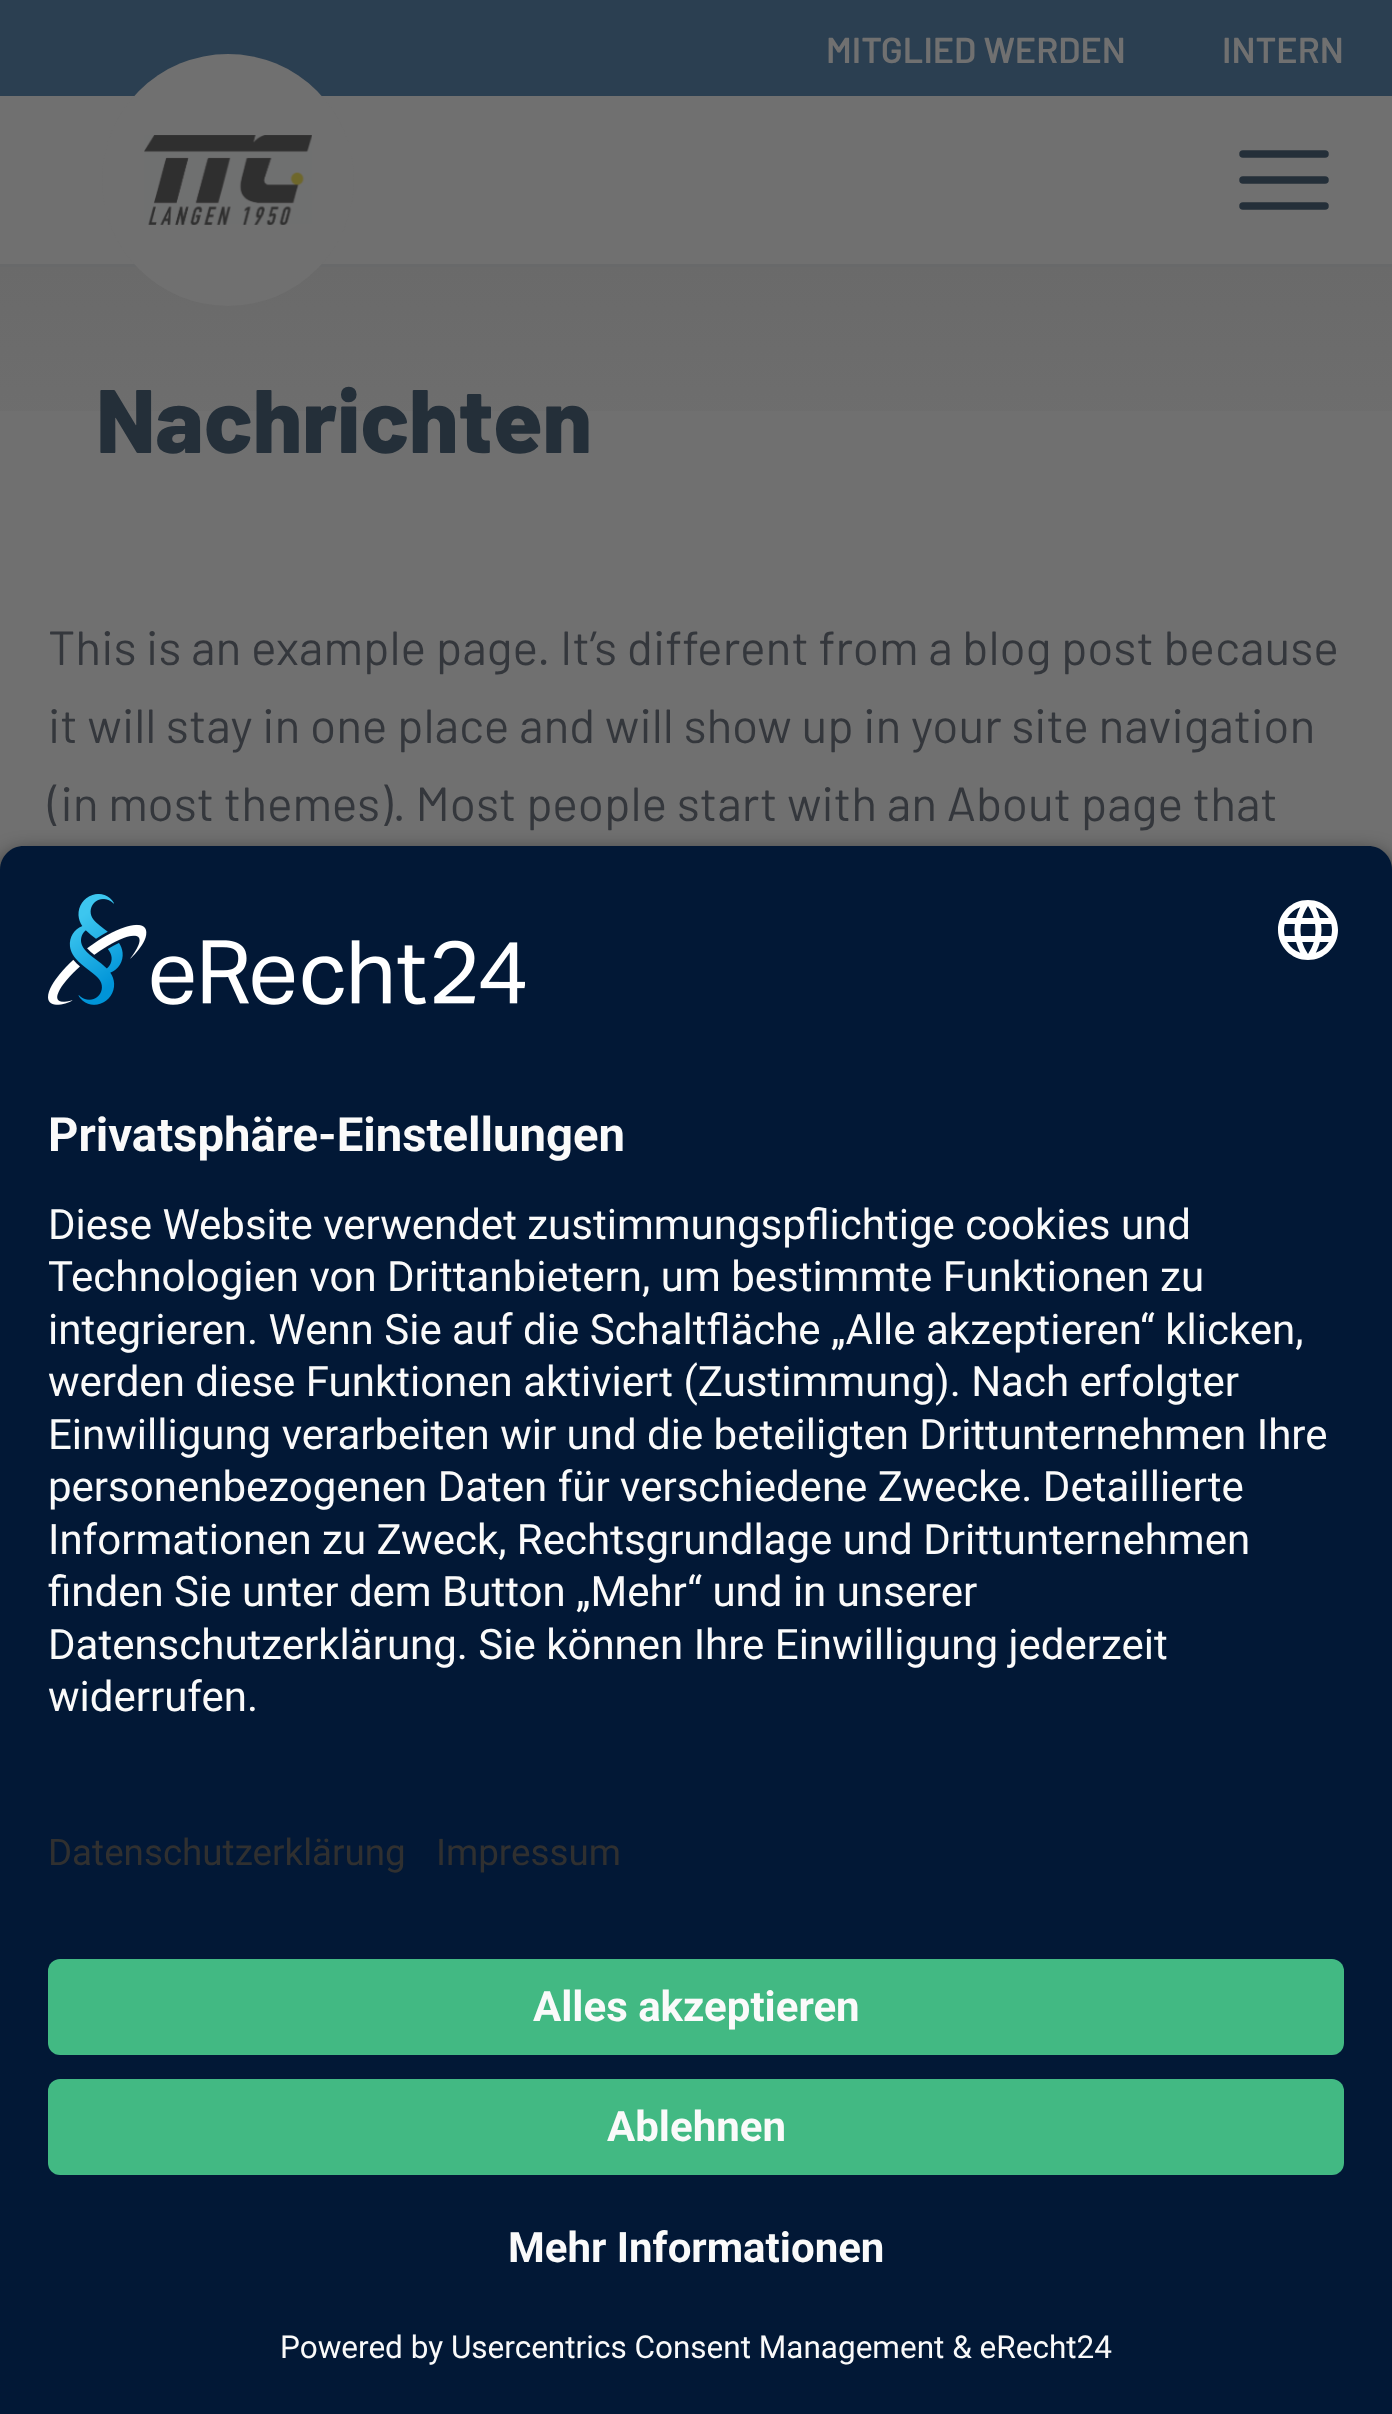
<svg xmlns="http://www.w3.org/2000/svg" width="1392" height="2414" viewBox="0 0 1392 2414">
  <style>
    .t1 { font: 600 36px Barlow; fill: #707070; }
    .t2 { font: 800 90px Barlow; fill: #242f39; }
    .t3 { font: 48px Barlow; fill: #34373c; }
    .t4 { font: bold 47.25px Roboto; fill: #fafafa; }
    .t5 { font: 42px Roboto; fill: #fafafa; }
    .t6 { font: 36.75px Roboto; fill: #303030; }
    .t7 { font: bold 42px Roboto; fill: #fafafa; }
    .t8 { font: 31.5px Roboto; fill: #fafafa; }
  </style>
  <defs>
    <linearGradient id="g1" gradientUnits="userSpaceOnUse" x1="696" y1="267" x2="696" y2="513"><stop offset="0" stop-color="#6a6a6a"/><stop offset="1" stop-color="#707070"/></linearGradient>
  </defs>
  <rect width="100%" height="100%" fill="#707070"/>
  <rect x="0" y="0" width="1392" height="96" fill="#2b3f51"/>
  <text x="826" y="63" class="t1">MITGLIED WERDEN</text>
  <text x="1222" y="63" class="t1">INTERN</text>
  <rect x="0" y="264" width="1392" height="3" fill="#68696a"/>
  <rect x="0" y="267" width="1392" height="144" fill="url(#g1)"/>
  <circle cx="228" cy="180" r="126" fill="#707070"/>
  <image x="144" y="135" width="168" height="90" href="images/1.png"/>
  <path d="M1243 154H1325M1243 180H1325M1243 206H1325" fill="none" stroke="#242f39" stroke-width="7.5" stroke-linecap="round" stroke-linejoin="round"/>
  <text x="96" y="453" class="t2">Nachrichten</text>
  <text x="48" y="665" class="t3">This is an example page. It’s different from a blog post because</text>
  <text x="48" y="743" class="t3">it will stay in one place and will show up in your site navigation</text>
  <text x="48" y="821" class="t3">(in most themes). Most people start with an About page that</text>
  <rect x="0" y="855" width="1392" height="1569" rx="24" fill="#000000cc" filter="blur(10.5px)"/>
  <path d="M24 846H1368C1381.5 846 1392 856.5 1392 870V1785H0V870C0 856.5 10.5 846 24 846Z" fill="#021836"/>
  <image x="48" y="894" width="477" height="111" href="images/2.png"/>
  <image x="1278" y="900" width="60" height="60" href="images/3.png"/>
  <text x="48" y="1151" class="t4">Privatsphäre-Einstellungen</text>
  <text x="48" y="1239" class="t5">Diese Website verwendet zustimmungspflichtige cookies und</text>
  <text x="48" y="1291" class="t5">Technologien von Drittanbietern, um bestimmte Funktionen zu</text>
  <text x="48" y="1344" class="t5">integrieren. Wenn Sie auf die Schaltfläche „Alle akzeptieren“ klicken,</text>
  <text x="48" y="1396" class="t5">werden diese Funktionen aktiviert (Zustimmung). Nach erfolgter</text>
  <text x="48" y="1449" class="t5">Einwilligung verarbeiten wir und die beteiligten Drittunternehmen Ihre</text>
  <text x="48" y="1501" class="t5">personenbezogenen Daten für verschiedene Zwecke. Detaillierte</text>
  <text x="48" y="1554" class="t5">Informationen zu Zweck, Rechtsgrundlage und Drittunternehmen</text>
  <text x="48" y="1606" class="t5">finden Sie unter dem Button „Mehr“ und in unserer</text>
  <text x="48" y="1659" class="t5">Datenschutzerklärung. Sie können Ihre Einwilligung jederzeit</text>
  <text x="48" y="1711" class="t5">widerrufen.</text>
  <rect x="0" y="1785" width="1392" height="629" fill="#021836"/>
  <text x="48" y="1865" class="t6">Datenschutzerklärung</text>
  <text x="436" y="1865" class="t6">Impressum</text>
  <rect x="48" y="1959" width="1296" height="96" rx="12" fill="#42b983"/>
  <text x="533" y="2021" class="t7">Alles akzeptieren</text>
  <rect x="48" y="2079" width="1296" height="96" rx="12" fill="#42b983"/>
  <text x="607" y="2141" class="t7">Ablehnen</text>
  <text x="508" y="2262" class="t7">Mehr Informationen</text>
  <text x="280" y="2358" class="t8">Powered by Usercentrics Consent Management &amp; eRecht24</text>
</svg>
